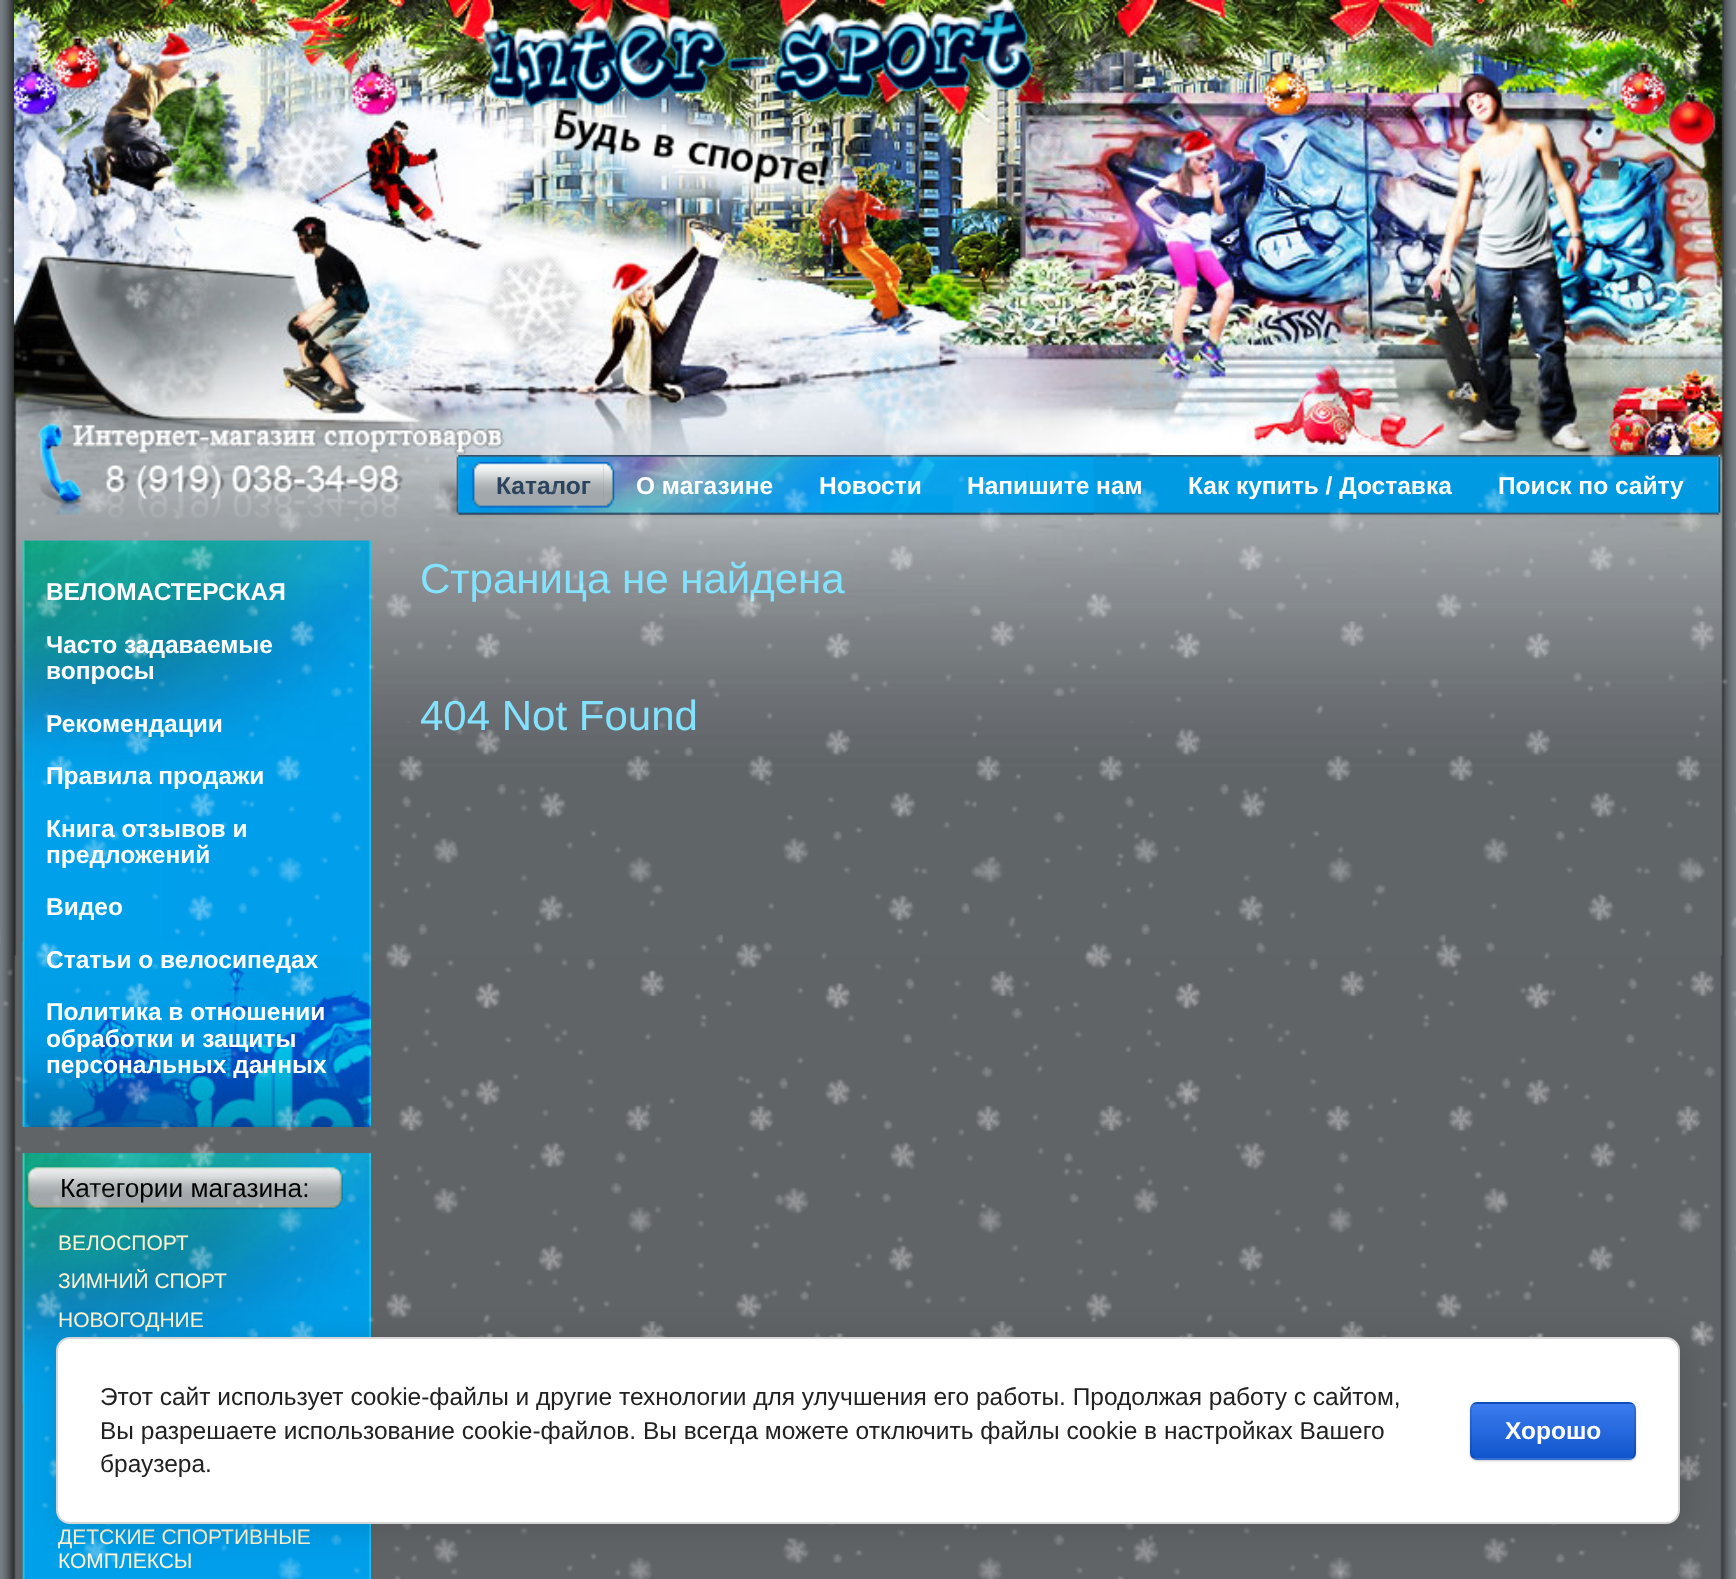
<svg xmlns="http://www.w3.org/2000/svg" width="1736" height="1579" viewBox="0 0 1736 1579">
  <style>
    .t1 { font: bold 24.5px Liberation Sans; fill: #2b435d; }
    .t2 { font: bold 24.5px Liberation Sans; fill: #fff; }
    .t3 { font: 26.25px Liberation Sans; fill: #000; }
    .t4 { font: 21px Liberation Sans; fill: #fff2cf; }
    .t5 { font: 42px Liberation Sans; fill: #83e3ff; }
    .t6 { font: 24.5px Liberation Sans; fill: #212121; }
  </style>
  <defs>
    <clipPath id="clip1"><rect x="1470" y="1402" width="166" height="58" rx="7"/></clipPath>
    <linearGradient id="g1" gradientUnits="userSpaceOnUse" x1="1553" y1="1349" x2="1553" y2="1404"><stop offset="0" stop-color="#3b7cef"/><stop offset="1" stop-color="#15c"/></linearGradient>
    <linearGradient id="g2" gradientUnits="userSpaceOnUse" x1="1553" y1="1404" x2="1553" y2="1458"><stop offset="0" stop-color="#3b7cef"/><stop offset="1" stop-color="#15c"/></linearGradient>
    <linearGradient id="g3" gradientUnits="userSpaceOnUse" x1="1553" y1="1458" x2="1553" y2="1512"><stop offset="0" stop-color="#3b7cef"/><stop offset="1" stop-color="#15c"/></linearGradient>
  </defs>
  <rect width="100%" height="100%" fill="#7c848b"/>
  <image x="0" y="0" width="1735" height="1579" href="images/1.png"/>
  <image x="14" y="0" width="1710" height="956" href="images/4.png"/>
  <image x="481" y="0" width="552" height="187" href="images/5.png"/>
  <image x="439" y="456" width="20" height="62" href="images/7.png"/>
  <image x="458" y="455" width="1263" height="64" href="images/8.png"/>
  <image x="458" y="455" width="636" height="60" href="images/9.png"/>
  <image x="603" y="462" width="12" height="46" href="images/11.png"/>
  <image x="472" y="462" width="132" height="46" href="images/12.png"/>
  <text x="496" y="494" class="t1">Каталог</text>
  <image x="38" y="423" width="467" height="95" href="images/6.png"/>
  <text x="636" y="494" class="t2">О магазине</text>
  <text x="819" y="494" class="t2">Новости</text>
  <text x="967" y="494" class="t2">Напишите нам</text>
  <text x="1188" y="494" class="t2">Как купить / Доставка</text>
  <text x="1498" y="494" class="t2">Поиск по сайту</text>
  <image x="22" y="540" width="349" height="587" href="images/13.png"/>
  <image x="22" y="941" width="349" height="186" href="images/14.png"/>
  <image x="22" y="540" width="349" height="251" href="images/15.png"/>
  <text x="46" y="600" class="t2">ВЕЛОМАСТЕРСКАЯ</text>
  <text x="46" y="653" class="t2">Часто задаваемые</text>
  <text x="46" y="679" class="t2">вопросы</text>
  <text x="46" y="732" class="t2">Рекомендации</text>
  <text x="46" y="784" class="t2">Правила продажи</text>
  <text x="46" y="837" class="t2">Книга отзывов и</text>
  <text x="46" y="863" class="t2">предложений</text>
  <text x="46" y="915" class="t2">Видео</text>
  <text x="46" y="968" class="t2">Статьи о велосипедах</text>
  <text x="46" y="1020" class="t2">Политика в отношении</text>
  <text x="46" y="1047" class="t2">обработки и защиты</text>
  <text x="46" y="1073" class="t2">персональных данных</text>
  <image x="22" y="1153" width="349" height="426" href="images/16.png"/>
  <image x="22" y="1153" width="349" height="251" href="images/17.png"/>
  <image x="26" y="1165" width="317" height="45" href="images/18.png"/>
  <text x="60" y="1197" class="t3">Категории магазина:</text>
  <text x="58" y="1250" class="t4">ВЕЛОСПОРТ</text>
  <text x="58" y="1288" class="t4">ЗИМНИЙ СПОРТ</text>
  <text x="58" y="1327" class="t4">НОВОГОДНИЕ</text>
  <text x="58" y="1544" class="t4">ДЕТСКИЕ СПОРТИВНЫЕ</text>
  <text x="58" y="1568" class="t4">КОМПЛЕКСЫ</text>
  <text x="420" y="593" class="t5">Страница не найдена</text>
  <text x="420" y="730" class="t5">404 Not Found</text>
  <image x="35" y="29" width="1680" height="1550" href="images/3.png"/>
  <image x="1716" y="455" width="5" height="60" href="images/10.png"/>
  <image x="0" y="0" width="1736" height="1579" href="images/2.png"/>
  <rect x="60" y="1341" width="1624" height="187" rx="14" fill="#00000024" filter="blur(16px)"/>
  <rect x="57" y="1338" width="1622" height="185" rx="13" fill="#fff" stroke="#d6d6d6" stroke-width="2"/>
  <text x="100" y="1405" class="t6">Этот сайт использует cookie-файлы и другие технологии для улучшения его работы. Продолжая работу с сайтом,</text>
  <text x="100" y="1439" class="t6">Вы разрешаете использование cookie-файлов. Вы всегда можете отключить файлы cookie в настройках Вашего</text>
  <text x="100" y="1472" class="t6">браузера.</text>
  <rect x="1470" y="1404" width="166" height="57" rx="7" fill="#00000033" filter="blur(1px)"/>
  <g clip-path="url(#clip1)">
    <rect x="1470" y="1402" width="166" height="2" fill="url(#g1)"/>
    <rect x="1470" y="1404" width="166" height="54" fill="url(#g2)"/>
    <rect x="1470" y="1458" width="166" height="2" fill="url(#g3)"/>
  </g>
  <rect x="1471" y="1403" width="164" height="56" rx="6" fill="none" stroke="#0000001a" stroke-width="2"/>
  <text x="1505" y="1439" class="t2">Хорошо</text>
</svg>
